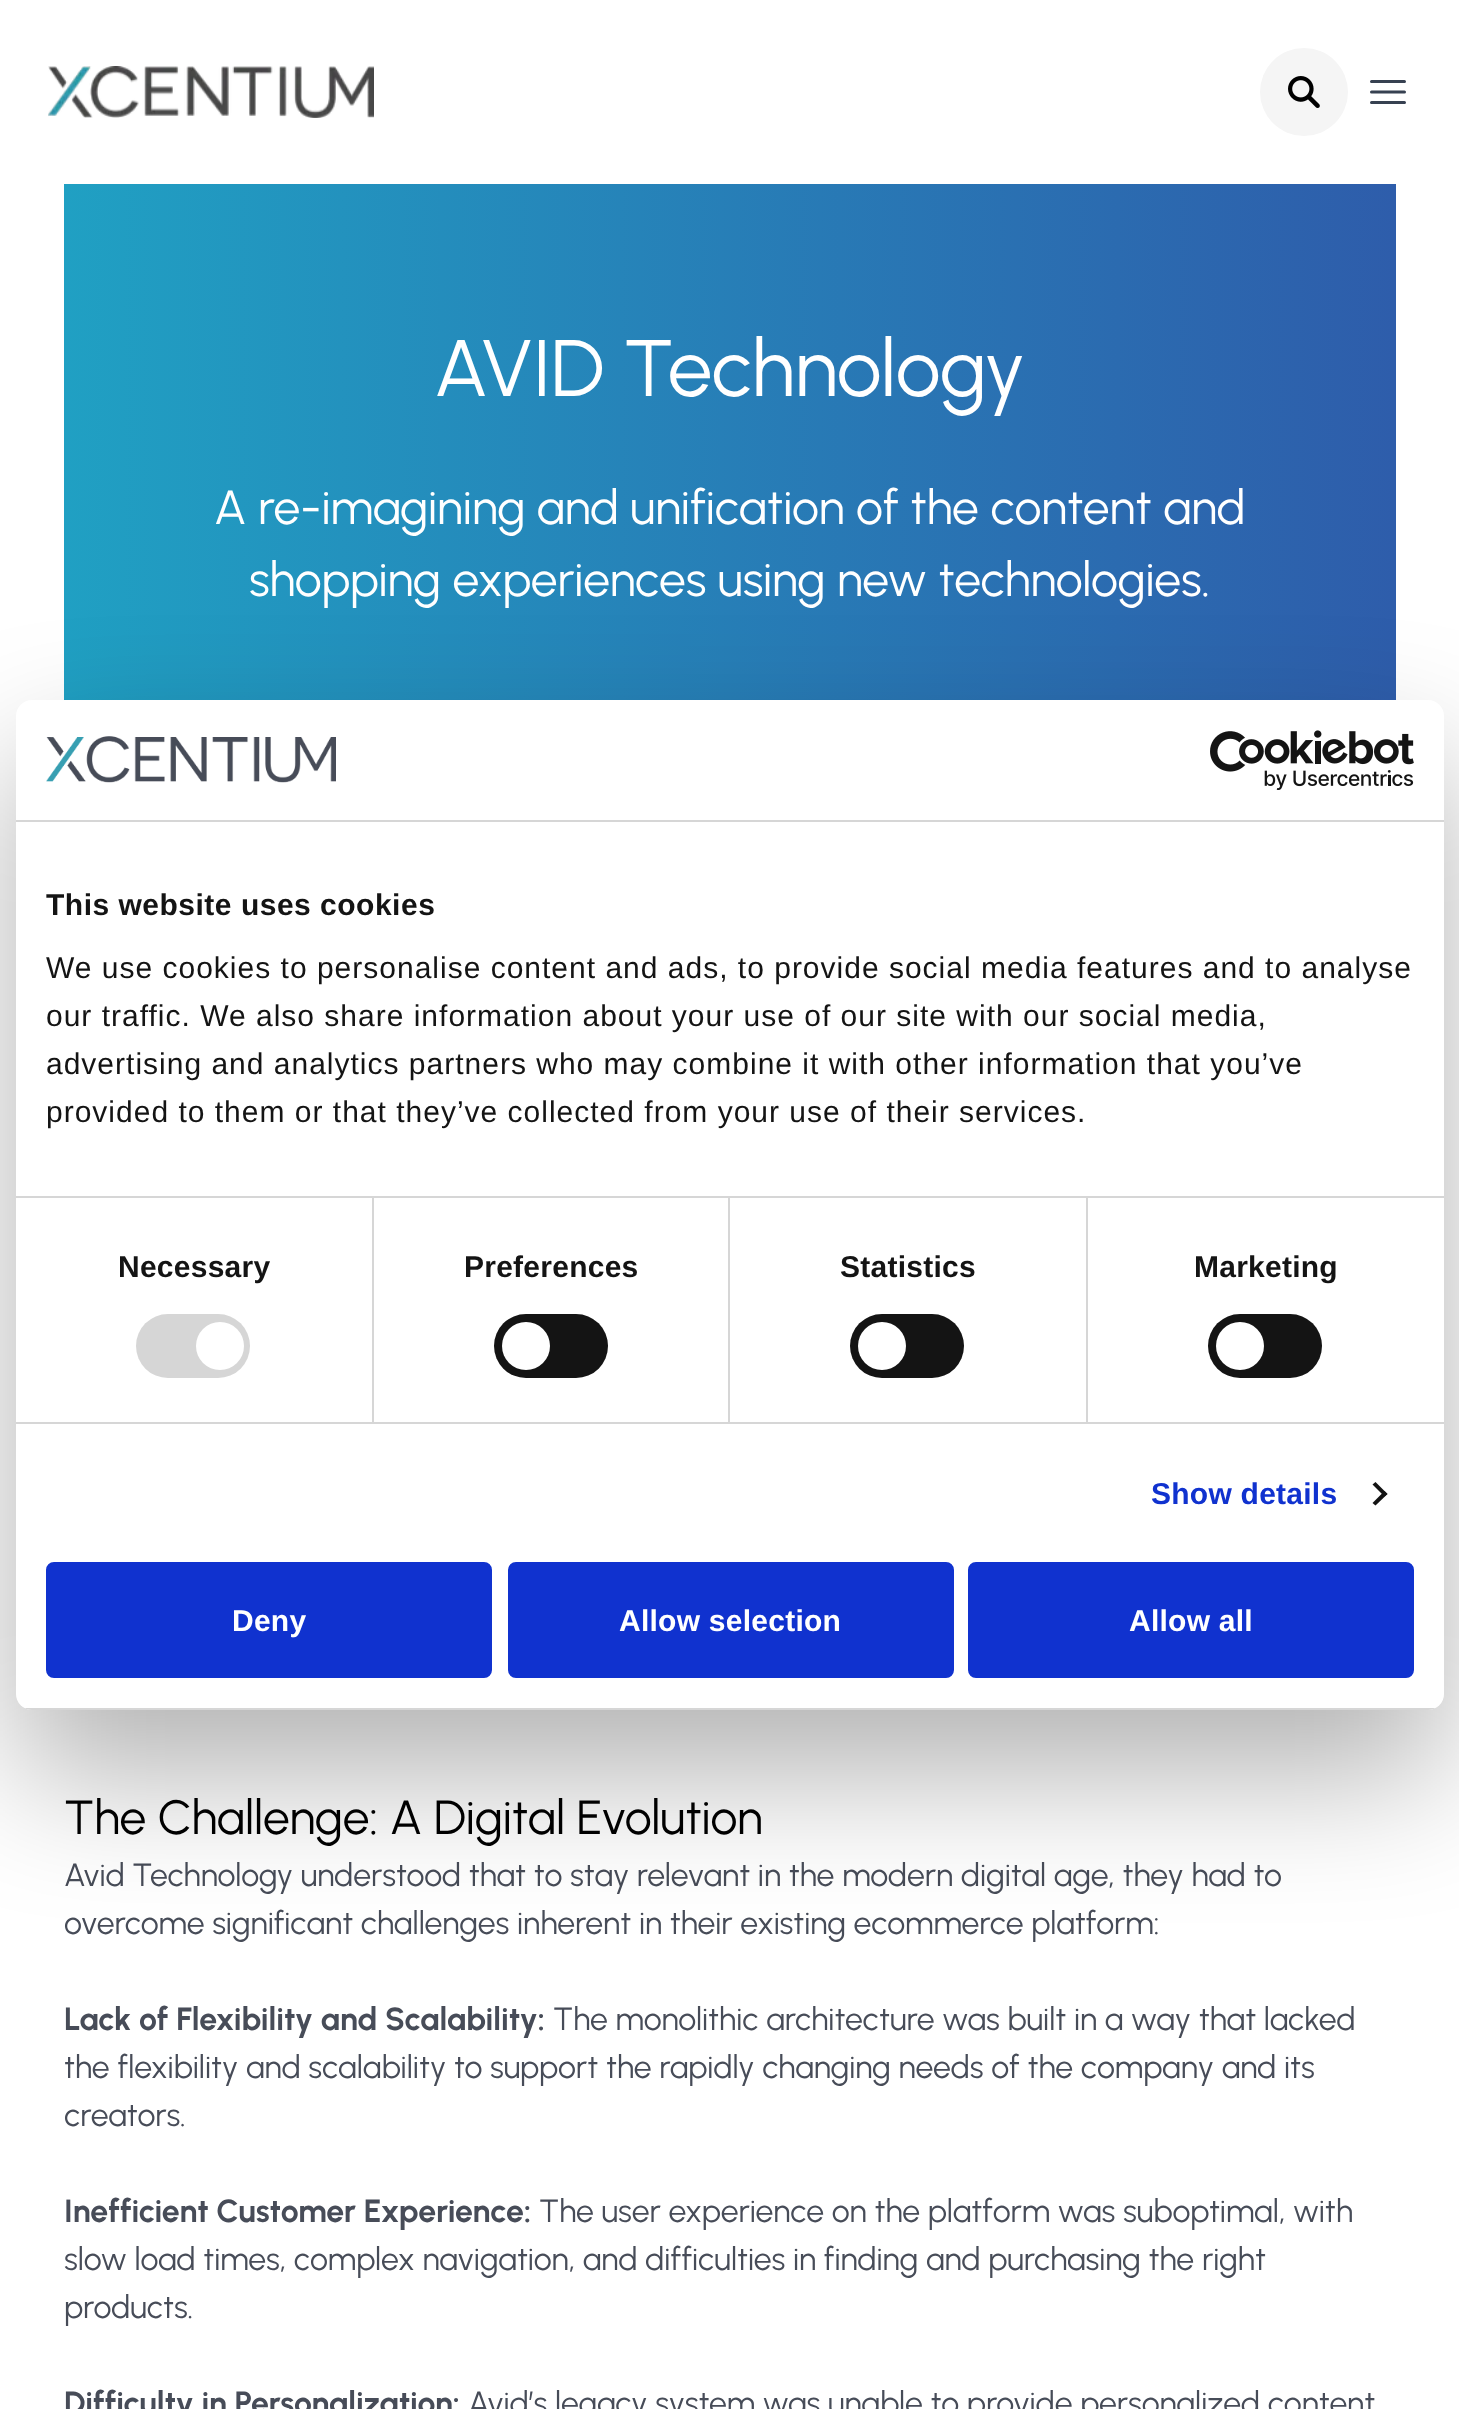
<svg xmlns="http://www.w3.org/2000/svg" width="1459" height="2409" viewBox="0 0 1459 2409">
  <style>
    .t1 { font: 80px Urbanist; fill: #fff; }
    .t2 { font: 48px Urbanist; fill: #fff; }
    .t3 { font: 48px Urbanist; fill: #000; }
    .t4 { font: 32px Urbanist; fill: #474c58; }
    .t5 { font: bold 32px Urbanist; fill: #474c58; }
    .t6 { font: bold 30px Liberation Sans; letter-spacing: 0.5px; fill: #141414; }
    .t7 { font: 30px Liberation Sans; letter-spacing: 1px; fill: #141414; }
    .t8 { font: bold 30px Liberation Sans; letter-spacing: 0.25px; fill: #141414; }
    .t9 { font: bold 30px Liberation Sans; letter-spacing: 0.25px; fill: #1032cf; }
    .t10 { font: bold 30px Liberation Sans; letter-spacing: 0.25px; fill: #fff; }
  </style>
  <defs>
    <linearGradient id="g1" gradientUnits="userSpaceOnUse" x1="64" y1="512" x2="1396" y2="512"><stop offset="0" stop-color="#20a0c3"/><stop offset="1" stop-color="#2e5dab"/></linearGradient>
    <clipPath id="clip1"><rect x="16" y="700" width="1428" height="1010" rx="16"/></clipPath>
  </defs>
  <rect width="100%" height="100%" fill="#fff"/>
  <image x="48" y="66" width="326" height="52" href="images/1.png"/>
  <circle cx="1304" cy="92" r="44" fill="#f5f5f5"/>
  <image x="1288" y="76" width="32" height="32" href="images/2.png"/>
  <path d="M1371.5 81.5H1404.5M1371.5 92H1404.5M1371.5 102.5H1404.5" fill="none" stroke="#374151" stroke-width="3" stroke-linecap="round" stroke-linejoin="round"/>
  <rect x="64" y="184" width="1332" height="516" fill="url(#g1)"/>
  <text x="434" y="396" class="t1">AVID Technology</text>
  <text x="214" y="524" class="t2">A re-imagining and unification of the content and</text>
  <text x="249" y="596" class="t2">shopping experiences using new technologies.</text>
  <text x="64" y="1834" class="t3">The Challenge: A Digital Evolution</text>
  <text x="64" y="1886" class="t4">Avid Technology understood that to stay relevant in the modern digital age, they had to</text>
  <text x="64" y="1934" class="t4">overcome significant challenges inherent in their existing ecommerce platform:</text>
  <text x="64" y="2030" class="t5">Lack of Flexibility and Scalability:</text>
  <text x="553" y="2030" class="t4">The monolithic architecture was built in a way that lacked</text>
  <text x="64" y="2078" class="t4">the flexibility and scalability to support the rapidly changing needs of the company and its</text>
  <text x="64" y="2126" class="t4">creators.</text>
  <text x="64" y="2222" class="t5">Inefficient Customer Experience:</text>
  <text x="539" y="2222" class="t4">The user experience on the platform was suboptimal, with</text>
  <text x="64" y="2270" class="t4">slow load times, complex navigation, and difficulties in finding and purchasing the right</text>
  <text x="64" y="2318" class="t4">products.</text>
  <text x="64" y="2414" class="t5">Difficulty in Personalization:</text>
  <text x="468" y="2414" class="t4">Avid’s legacy system was unable to provide personalized content</text>
  <rect x="16" y="764" width="1428" height="1010" rx="16" fill="#0000004d" filter="blur(68px)"/>
  <rect x="16" y="700" width="1428" height="1010" rx="16" fill="#fff"/>
  <rect x="16" y="820" width="1428" height="2" fill="#d6d6d6"/>
  <image x="46" y="736" width="290" height="47" href="images/3.png"/>
  <image x="1210" y="730" width="204" height="60" href="images/4.png"/>
  <rect x="16" y="1196" width="1428" height="2" fill="#d6d6d6"/>
  <text x="46" y="915" class="t6">This website uses cookies</text>
  <text x="46" y="978" class="t7">We use cookies to personalise content and ads, to provide social media features and to analyse</text>
  <text x="46" y="1026" class="t7">our traffic. We also share information about your use of our site with our social media,</text>
  <text x="46" y="1074" class="t7">advertising and analytics partners who may combine it with other information that you’ve</text>
  <text x="46" y="1122" class="t7">provided to them or that they’ve collected from your use of their services.</text>
  <rect x="16" y="1422" width="1428" height="2" fill="#d6d6d6"/>
  <rect x="372" y="1198" width="2" height="224" fill="#d6d6d6"/>
  <text x="118" y="1277" class="t8">Necessary</text>
  <rect x="136" y="1314" width="114" height="64" rx="32" fill="#d6d6d6"/>
  <circle cx="220" cy="1346" r="24" fill="#fff"/>
  <rect x="728" y="1198" width="2" height="224" fill="#d6d6d6"/>
  <text x="464" y="1277" class="t8">Preferences</text>
  <rect x="494" y="1314" width="114" height="64" rx="32" fill="#141414"/>
  <circle cx="526" cy="1346" r="24" fill="#fff"/>
  <rect x="1086" y="1198" width="2" height="224" fill="#d6d6d6"/>
  <text x="840" y="1277" class="t8">Statistics</text>
  <rect x="850" y="1314" width="114" height="64" rx="32" fill="#141414"/>
  <circle cx="882" cy="1346" r="24" fill="#fff"/>
  <text x="1194" y="1277" class="t8">Marketing</text>
  <rect x="1208" y="1314" width="114" height="64" rx="32" fill="#141414"/>
  <circle cx="1240" cy="1346" r="24" fill="#fff"/>
  <text x="1151" y="1504" class="t9">Show details</text>
  <path d="M1375.5 1482L1387.5 1494L1384.5 1496.5L1372.5 1484.5Z" fill="#141414"/>
  <path d="M1384.5 1491L1387.5 1494L1375.5 1505.5L1372.5 1503Z" fill="#141414"/>
  <g clip-path="url(#clip1)">
    <rect x="16" y="1708" width="1428" height="2" fill="#d6d6d6"/>
  </g>
  <rect x="48" y="1564" width="442" height="112" rx="6" fill="#1032cf" stroke="#1032cf" stroke-width="4"/>
  <text x="232" y="1631" class="t10">Deny</text>
  <rect x="510" y="1564" width="442" height="112" rx="6" fill="#1032cf" stroke="#1032cf" stroke-width="4"/>
  <text x="619" y="1631" class="t10">Allow selection</text>
  <rect x="970" y="1564" width="442" height="112" rx="6" fill="#1032cf" stroke="#1032cf" stroke-width="4"/>
  <text x="1129" y="1631" class="t10">Allow all</text>
</svg>
